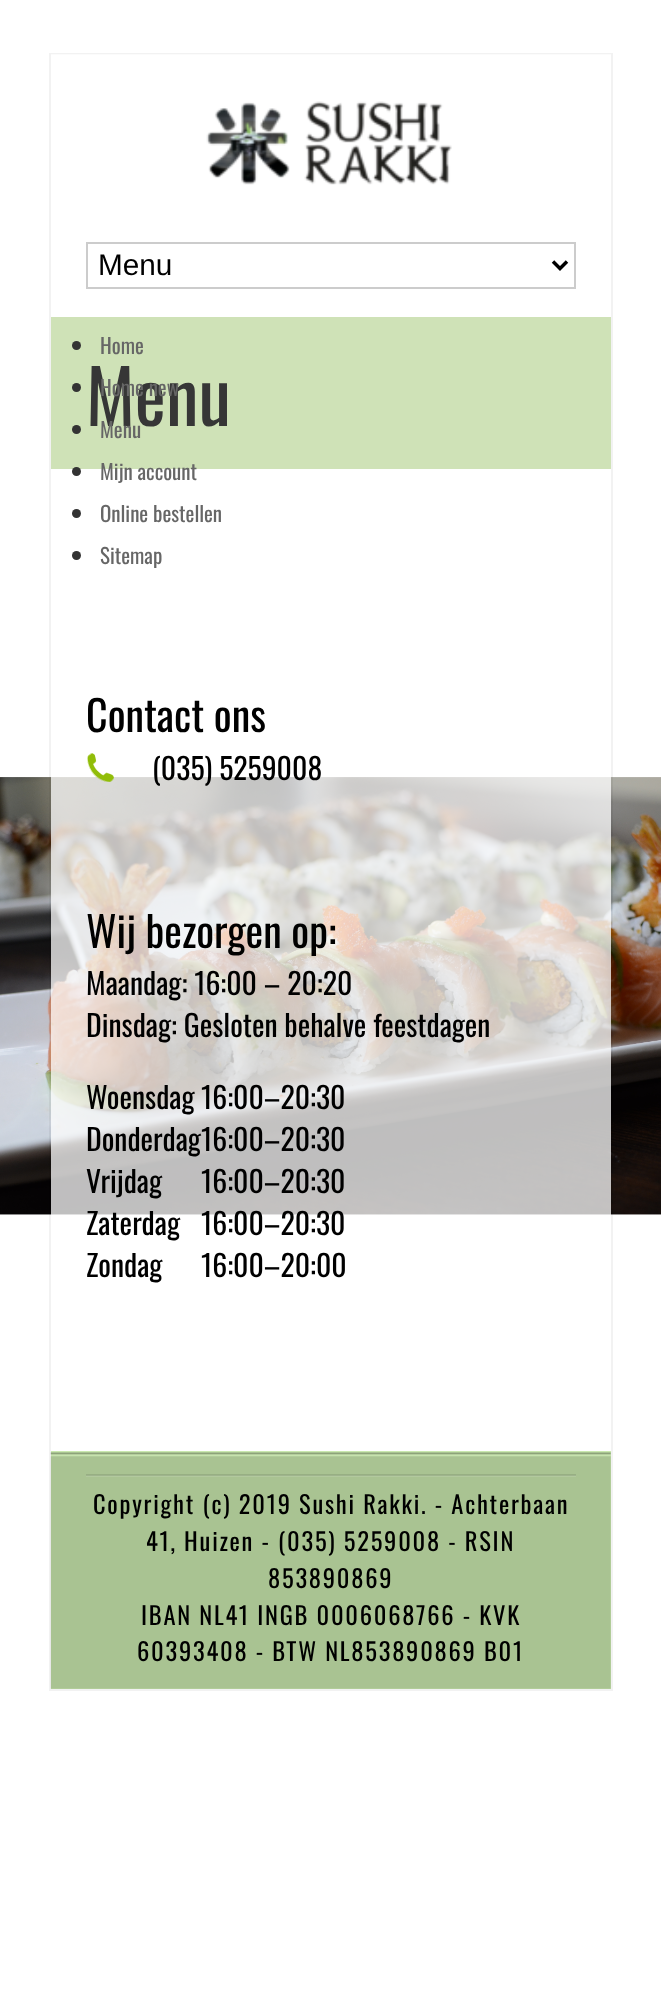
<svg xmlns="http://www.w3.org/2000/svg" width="661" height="1991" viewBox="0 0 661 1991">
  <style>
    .t1 { font: 29.75px Liberation Sans; fill: #000; }
    .t2 { font: 21px Oswald; fill: #666; }
    .t3 { font: 74px Oswald; fill: #363636; }
    .t4 { font: 42px Oswald; fill: #000; }
    .t5 { font: 29.75px Oswald; fill: #000; }
    .t6 { font: 24.5px Oswald; letter-spacing: 1.75px; fill: #000; }
  </style>
  <rect width="100%" height="100%" fill="#fff"/>
  <image x="0" y="777" width="661" height="438" href="images/1.png"/>
  <rect x="50" y="54" width="562" height="1636" fill="none" stroke="#0000000d" stroke-width="2"/>
  <rect x="51" y="54" width="560" height="1" fill="#fefefebf"/>
  <image x="206" y="101" width="246" height="84" href="images/2.png"/>
  <rect x="87" y="243" width="488" height="45" fill="none" stroke="#ccc" stroke-width="2"/>
  <path d="M553 261.5L560 268.5L567 261.5" fill="none" stroke="#000" stroke-width="3.5"/>
  <text x="98" y="275" class="t1">Menu</text>
  <rect x="51" y="317" width="560" height="152" fill="#cfe2b7"/>
  <circle cx="76.5" cy="345.5" r="4.5" fill="#333"/>
  <text x="100" y="354" class="t2">Home</text>
  <circle cx="76.5" cy="387.5" r="4.5" fill="#333"/>
  <text x="86" y="426" class="t3">Menu</text>
  <text x="100" y="396" class="t2">Home new</text>
  <circle cx="76.5" cy="429.5" r="4.5" fill="#333"/>
  <text x="100" y="438" class="t2">Menu</text>
  <circle cx="76.5" cy="471.5" r="4.5" fill="#333"/>
  <text x="100" y="480" class="t2">Mijn account</text>
  <circle cx="76.5" cy="513.5" r="4.5" fill="#333"/>
  <text x="100" y="522" class="t2">Online bestellen</text>
  <circle cx="76.5" cy="555.5" r="4.5" fill="#333"/>
  <text x="100" y="564" class="t2">Sitemap</text>
  <rect x="51" y="777" width="560" height="438" fill="#fefefebf"/>
  <text x="86" y="732" class="t4">Contact ons</text>
  <image x="87" y="753" width="27" height="29" href="images/3.png"/>
  <text x="152" y="780" class="t5">(035) 5259008</text>
  <text x="86" y="948" class="t4">Wij bezorgen op:</text>
  <text x="86" y="995" class="t5">Maandag: 16:00 – 20:20</text>
  <text x="86" y="1037" class="t5">Dinsdag: Gesloten behalve feestdagen</text>
  <text x="86" y="1109" class="t5">Woensdag</text>
  <text x="201" y="1109" class="t5">16:00–20:30</text>
  <text x="86" y="1151" class="t5">Donderdag16:00–20:30</text>
  <text x="86" y="1193" class="t5">Vrijdag</text>
  <text x="201" y="1193" class="t5">16:00–20:30</text>
  <text x="86" y="1235" class="t5">Zaterdag</text>
  <text x="201" y="1235" class="t5">16:00–20:30</text>
  <text x="86" y="1277" class="t5">Zondag</text>
  <text x="201" y="1277" class="t5">16:00–20:00</text>
  <rect x="51" y="1451" width="560" height="238" fill="#cae9af"/>
  <image x="50" y="1452" width="561" height="237" href="images/4.png"/>
  <rect x="86" y="1475" width="490" height="2" fill="#b2c99e"/>
  <rect x="86" y="1474" width="490" height="2" fill="#0000001a"/>
  <text x="93" y="1514" class="t6">Copyright (c) 2019 Sushi Rakki. - Achterbaan</text>
  <text x="146" y="1551" class="t6">41, Huizen - (035) 5259008 - RSIN</text>
  <text x="268" y="1588" class="t6">853890869</text>
  <text x="141" y="1625" class="t6">IBAN NL41 INGB 0006068766 - KVK</text>
  <text x="137" y="1661" class="t6">60393408 - BTW NL853890869 B01</text>
</svg>
